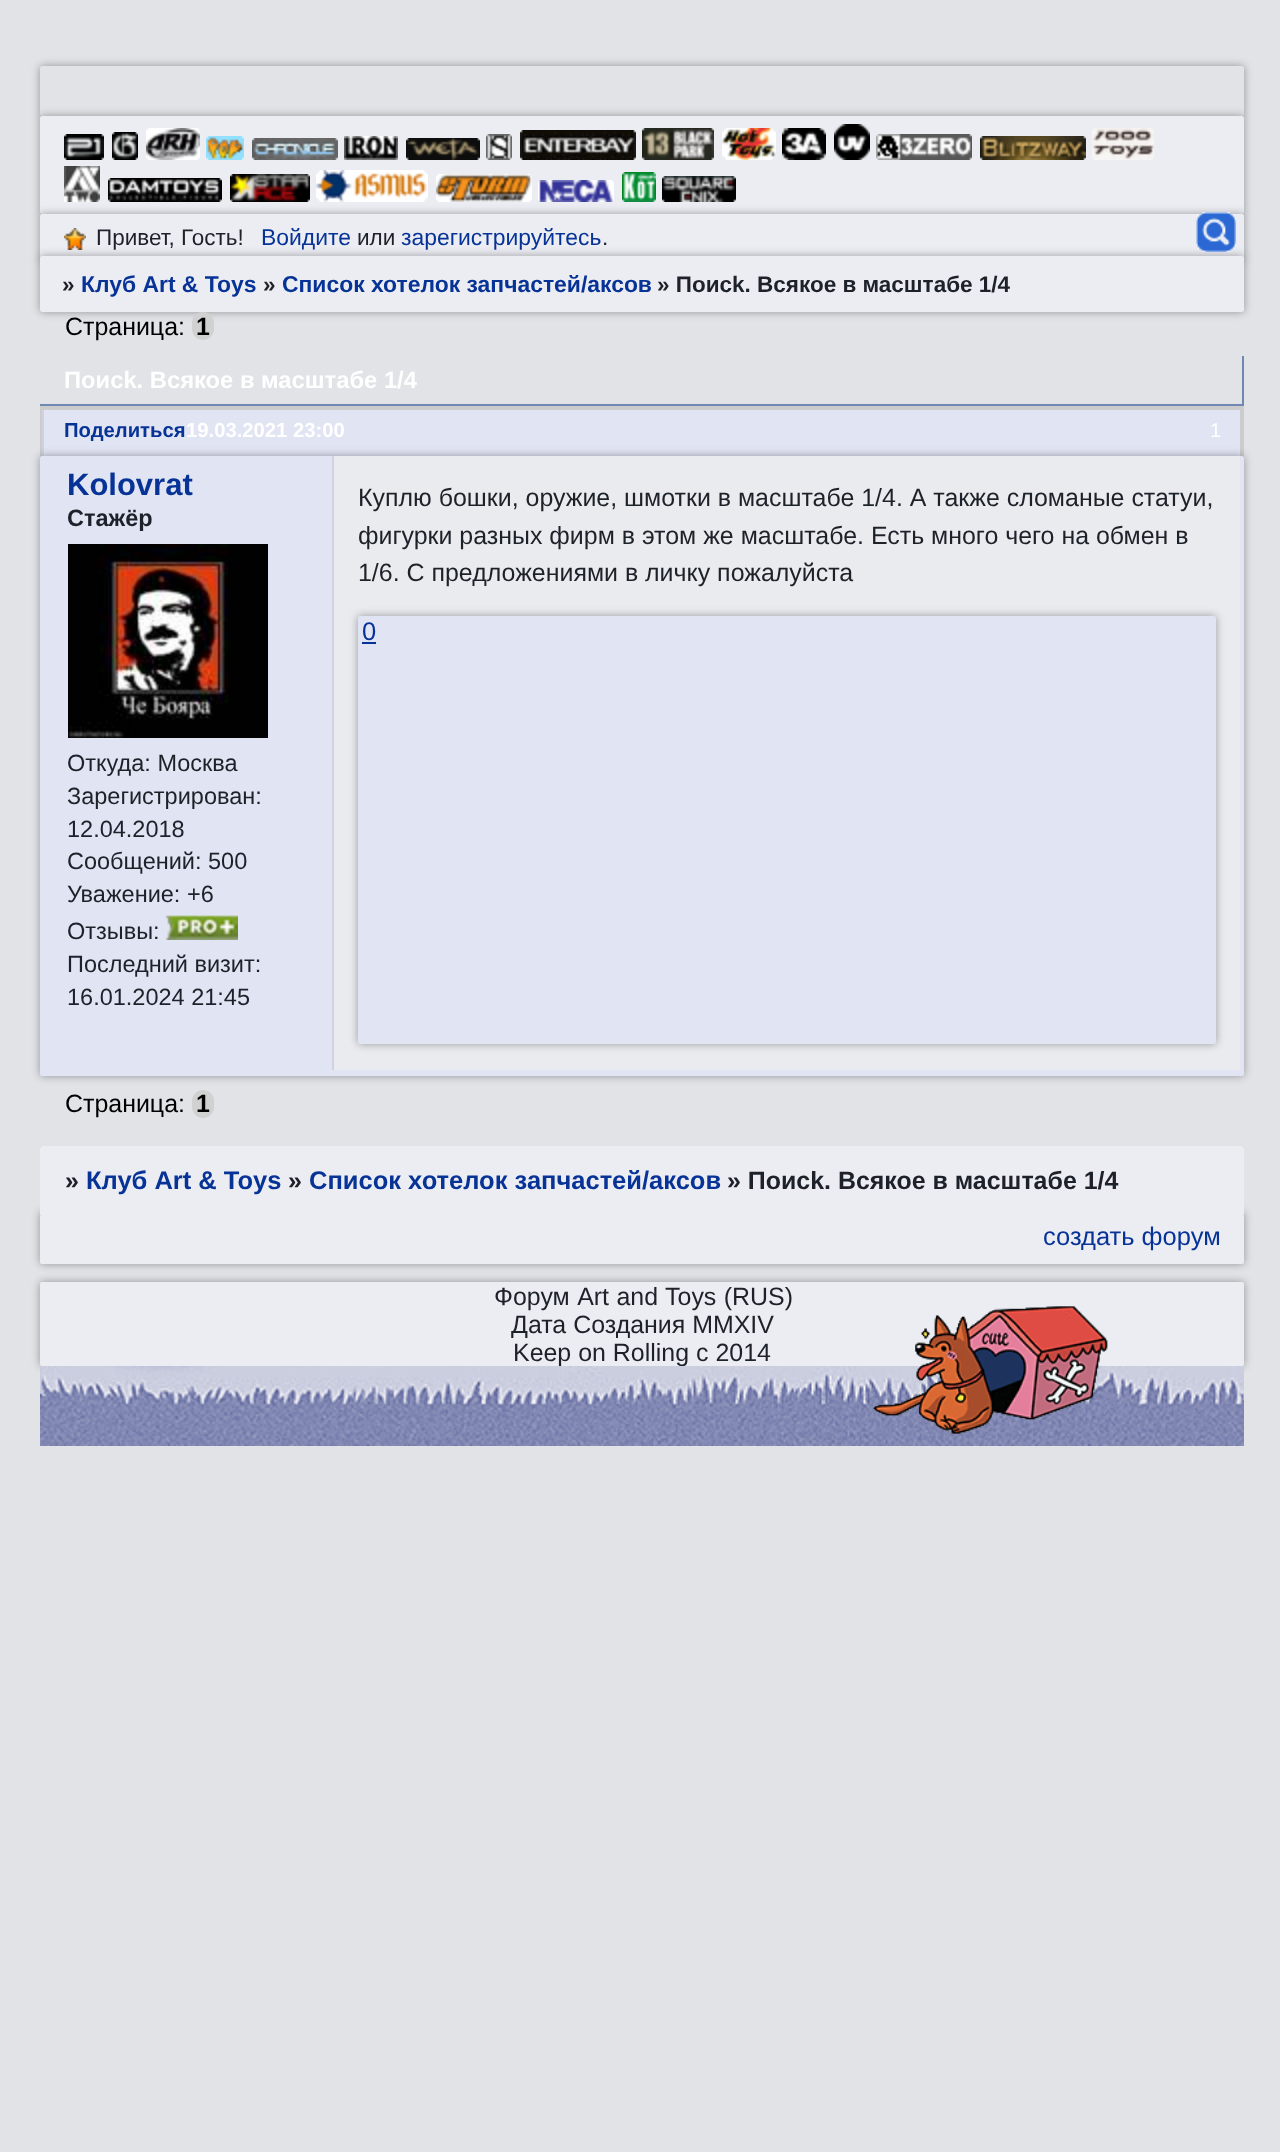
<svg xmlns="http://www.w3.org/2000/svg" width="1280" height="2152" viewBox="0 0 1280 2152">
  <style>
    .t1 { font: 22.5px Liberation Sans; fill: #1d2129; }
    .t2 { font: 22.9px Liberation Sans; fill: #073397; }
    .t3 { font: bold 22.5px Liberation Sans; fill: #1d2129; }
    .t4 { font: bold 22.9px Liberation Sans; fill: #073397; }
    .t5 { font: 24.95px Liberation Sans; fill: #000; }
    .t6 { font: bold 24.95px Liberation Sans; fill: #000; }
    .t7 { font: bold 23.75px Liberation Sans; fill: #fff; }
    .t8 { font: bold 20.25px Liberation Sans; fill: #073397; }
    .t9 { font: bold 20.25px Liberation Sans; fill: #fff; }
    .t10 { font: 20px Liberation Sans; fill: #fff; }
    .t11 { font: bold 31px Liberation Sans; fill: #073397; }
    .t12 { font: bold 23.5px Liberation Sans; fill: #1d2129; }
    .t13 { font: 23.5px Liberation Sans; fill: #1d2129; }
    .t14 { font: 24.95px Liberation Sans; fill: #1d2129; }
    .t15 { font: 25.5px Liberation Sans; fill: #073397; }
    .t16 { font: bold 24.95px Liberation Sans; fill: #1d2129; }
    .t17 { font: bold 25.5px Liberation Sans; fill: #073397; }
  </style>
  <defs>
    <clipPath id="clip1"><path d="M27 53H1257V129H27ZM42 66H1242C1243 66 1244 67 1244 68V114C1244 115 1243 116 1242 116H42C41 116 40 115 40 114V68C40 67 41 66 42 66Z" clip-rule="evenodd"/></clipPath>
    <clipPath id="clip2"><rect x="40" y="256" width="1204" height="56" rx="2"/></clipPath>
    <clipPath id="clip3"><rect x="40" y="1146" width="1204" height="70"/></clipPath>
  </defs>
  <rect width="100%" height="100%" fill="#e2e3e7"/>
  <g clip-path="url(#clip1)">
    <rect x="40" y="66" width="1204" height="50" rx="2" fill="#00000059" filter="blur(4px)"/>
  </g>
  <rect x="40" y="116" width="1204" height="98" rx="2" fill="#00000059" filter="blur(4px)"/>
  <rect x="40" y="116" width="1204" height="98" rx="2" fill="#ecedf3"/>
  <image x="64" y="134" width="40" height="26" href="images/1.png"/>
  <image x="112" y="132" width="26" height="28" href="images/2.png"/>
  <image x="146" y="128" width="54" height="32" href="images/3.png"/>
  <image x="206" y="136" width="38" height="24" href="images/4.png"/>
  <image x="252" y="138" width="86" height="22" href="images/5.png"/>
  <image x="344" y="136" width="54" height="24" href="images/6.png"/>
  <image x="406" y="138" width="74" height="22" href="images/7.png"/>
  <image x="486" y="134" width="26" height="26" href="images/8.png"/>
  <image x="520" y="130" width="116" height="30" href="images/9.png"/>
  <image x="642" y="128" width="72" height="32" href="images/10.png"/>
  <image x="722" y="128" width="54" height="32" href="images/11.png"/>
  <image x="782" y="128" width="44" height="32" href="images/12.png"/>
  <image x="834" y="124" width="36" height="36" href="images/13.png"/>
  <image x="876" y="134" width="96" height="26" href="images/14.png"/>
  <image x="980" y="136" width="106" height="24" href="images/15.png"/>
  <image x="1092" y="128" width="62" height="32" href="images/16.png"/>
  <rect x="40" y="214" width="1204" height="46" rx="2" fill="#00000059" filter="blur(4px)"/>
  <image x="64" y="166" width="36" height="36" href="images/17.png"/>
  <image x="108" y="178" width="114" height="24" href="images/18.png"/>
  <image x="230" y="174" width="80" height="28" href="images/19.png"/>
  <image x="316" y="170" width="112" height="32" href="images/20.png"/>
  <image x="436" y="174" width="96" height="28" href="images/21.png"/>
  <image x="538" y="180" width="76" height="22" href="images/22.png"/>
  <image x="622" y="172" width="34" height="30" href="images/23.png"/>
  <image x="662" y="176" width="74" height="26" href="images/24.png"/>
  <rect x="40" y="214" width="1204" height="46" rx="2" fill="#ecedf3"/>
  <image x="64" y="228" width="22" height="22" href="images/25.png"/>
  <text x="96" y="245" class="t1">Привет, Гость!</text>
  <text x="261" y="245" class="t2">Войдите</text>
  <text x="357" y="245" class="t1">или</text>
  <text x="401" y="245" class="t2">зарегистрируйтесь</text>
  <text x="602" y="245" class="t1">.</text>
  <rect x="40" y="256" width="1204" height="56" rx="2" fill="#00000059" filter="blur(4px)"/>
  <g clip-path="url(#clip2)">
    <rect x="40" y="256" width="1204" height="56" rx="2" fill="#00000059" filter="blur(4px)"/>
  </g>
  <rect x="40" y="256" width="1204" height="56" rx="2" fill="#ecedf3"/>
  <text x="62" y="292" class="t3">»</text>
  <text x="81" y="292" class="t4">Клуб Art &amp; Toys</text>
  <text x="263" y="292" class="t3">»</text>
  <text x="282" y="292" class="t4">Список хотелок запчаcтей/аксов</text>
  <text x="657" y="292" class="t3">» Пoиck. Всякое в масштабе 1/4</text>
  <text x="65" y="335" class="t5">Страница:</text>
  <rect x="192" y="312" width="22" height="28" rx="11" fill="#d1d1d1"/>
  <text x="196" y="335" class="t6">1</text>
  <rect x="1242" y="356" width="2" height="50" fill="#6f89b3"/>
  <rect x="40" y="404" width="1204" height="2" fill="#6f89b3"/>
  <text x="64" y="388" class="t7">Пoиck. Всякое в масштабе 1/4</text>
  <rect x="44" y="410" width="1196" height="46" fill="#e1e4f2"/>
  <rect x="40" y="406" width="1204" height="4" fill="#ccc"/>
  <rect x="1240" y="406" width="4" height="52" fill="#ccc"/>
  <rect x="40" y="406" width="4" height="52" fill="#ccc"/>
  <rect x="42" y="410" width="2" height="48" fill="#d1d1e1"/>
  <text x="64" y="437" class="t8">Поделиться</text>
  <text x="186" y="437" class="t9">19.03.2021 23:00</text>
  <text x="1210" y="437" class="t10">1</text>
  <rect x="40" y="456" width="1204" height="620" rx="2" fill="#00000059" filter="blur(4px)"/>
  <rect x="40" y="456" width="1204" height="620" rx="2" fill="#e1e4f2"/>
  <text x="67" y="495" class="t11">Kolovrat</text>
  <text x="67" y="526" class="t12">Стажёр</text>
  <image x="68" y="544" width="200" height="194" href="images/26.png"/>
  <text x="67" y="771" class="t13">Откуда: Москва</text>
  <text x="67" y="804" class="t13">Зарегистрирован:</text>
  <text x="67" y="837" class="t13">12.04.2018</text>
  <text x="67" y="869" class="t13">Сообщений: 500</text>
  <text x="67" y="902" class="t13">Уважение: +6</text>
  <text x="67" y="939" class="t13">Отзывы:</text>
  <image x="166" y="915" width="72" height="25" href="images/27.png"/>
  <text x="67" y="972" class="t13">Последний визит:</text>
  <text x="67" y="1005" class="t13">16.01.2024 21:45</text>
  <rect x="334" y="456" width="906" height="614" fill="#e9ebee"/>
  <rect x="332" y="456" width="2" height="614" fill="#d1d1e1"/>
  <text x="358" y="506" class="t14">Куплю бошки, оружие, шмотки в масштабе 1/4. А также сломаные статуи,</text>
  <text x="358" y="544" class="t14">фигурки разных фирм в этом же масштабе. Есть много чего на обмен в</text>
  <text x="358" y="581" class="t14">1/6. С предложениями в личку пожалуйста</text>
  <rect x="358" y="616" width="858" height="428" rx="2" fill="#00000059" filter="blur(4px)"/>
  <rect x="358" y="616" width="858" height="428" rx="2" fill="#e1e4f2"/>
  <text x="362" y="640" class="t15">0</text>
  <rect x="362" y="642" width="14" height="2" fill="#073397"/>
  <text x="65" y="1112" class="t5">Страница:</text>
  <rect x="192" y="1090" width="22" height="28" rx="11" fill="#d1d1d1"/>
  <text x="196" y="1112" class="t6">1</text>
  <rect x="40" y="1212" width="1204" height="52" rx="2" fill="#00000059" filter="blur(4px)"/>
  <rect x="40" y="1212" width="1204" height="52" rx="2" fill="#ecedf3"/>
  <g clip-path="url(#clip3)">
    <rect x="40" y="1146" width="1204" height="70" rx="2" fill="#00000059" filter="blur(4px)"/>
  </g>
  <rect x="40" y="1146" width="1204" height="70" rx="2" fill="#ecedf3"/>
  <text x="65" y="1189" class="t16">»</text>
  <text x="86" y="1189" class="t17">Клуб Art &amp; Toys</text>
  <text x="288" y="1189" class="t16">»</text>
  <text x="309" y="1189" class="t17">Список хотелок запчаcтей/аксов</text>
  <text x="727" y="1189" class="t16">» Пoиck. Всякое в масштабе 1/4</text>
  <text x="1043" y="1245" class="t15">создать форум</text>
  <rect x="40" y="1282" width="1204" height="84" rx="2" fill="#00000059" filter="blur(4px)"/>
  <rect x="40" y="1282" width="1204" height="84" rx="2" fill="#ecedf3"/>
  <image x="1195" y="212" width="41" height="40" href="images/28.png"/>
  <text x="494" y="1305" word-spacing="0.5" class="t14">Форум Art and Toys (RUS)</text>
  <text x="511" y="1333" class="t14">Дата Создания MMXIV</text>
  <text x="513" y="1361" class="t14">Keep on Rolling с 2014</text>
  <image x="40" y="1366" width="1204" height="80" href="images/30.png"/>
  <image x="873" y="1306" width="235" height="128" href="images/29.png"/>
</svg>
